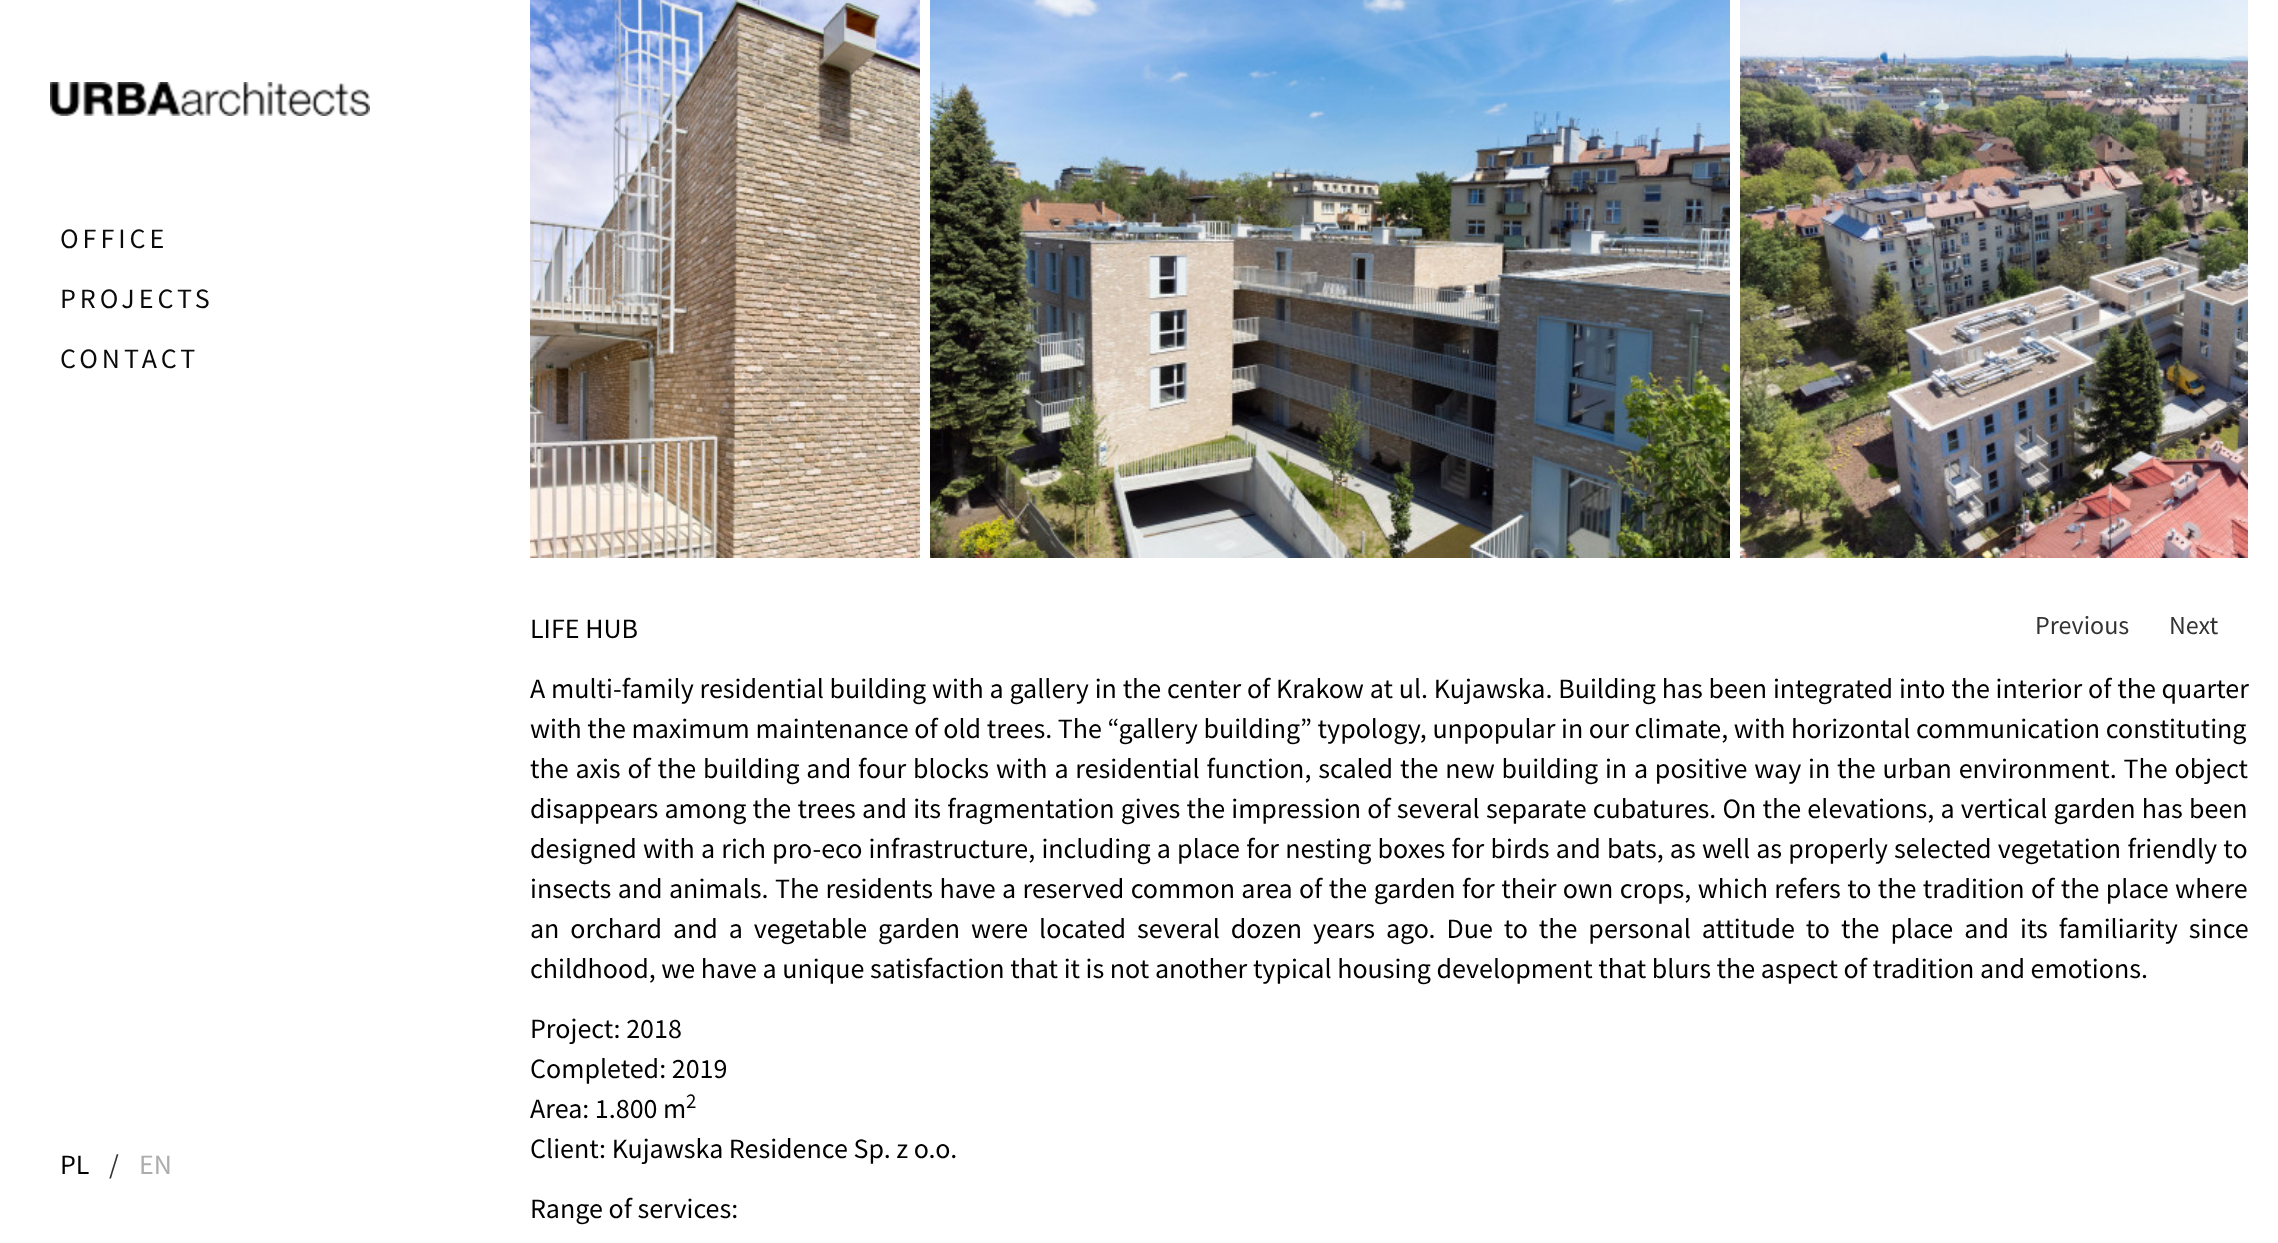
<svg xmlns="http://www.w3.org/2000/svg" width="2278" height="1243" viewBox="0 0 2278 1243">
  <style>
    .t1 { font: 28px Source Sans Pro; letter-spacing: 4px; fill: #0a0a0a; }
    .t2 { font: 28px Source Sans Pro; fill: #000; }
    .t3 { font: 28px Source Sans Pro; fill: #333; }
    .t4 { font: 28px Source Sans Pro; fill: #adadad; }
    .t5 { font: 26px Source Sans Pro; fill: #333; }
    .t6 { font: 21px Source Sans Pro; fill: #000; }
  </style>
  <rect width="100%" height="100%" fill="#fff"/>
  <image x="50" y="82" width="320" height="34" href="images/1.png"/>
  <text x="60" y="248" class="t1">OFFICE</text>
  <text x="60" y="308" class="t1">PROJECTS</text>
  <text x="60" y="368" class="t1">CONTACT</text>
  <text x="60" y="1174" class="t2">PL</text>
  <text x="109" y="1174" class="t3">/</text>
  <text x="139" y="1174" class="t4">EN</text>
  <text x="530" y="638" class="t2">LIFE HUB</text>
  <image x="530" y="0" width="390" height="558" href="images/2.png"/>
  <image x="930" y="0" width="800" height="558" href="images/3.png"/>
  <image x="1740" y="0" width="508" height="558" href="images/4.png"/>
  <text x="2035" y="634" class="t5">Previous</text>
  <text x="2169" y="634" class="t5">Next</text>
  <text x="530" y="698" word-spacing="0.2" class="t2">A multi-family residential building with a gallery in the center of Krakow at ul. Kujawska. Building has been integrated into the interior of the quarter</text>
  <text x="530" y="738" class="t2">with the maximum maintenance of old trees. The “gallery building” typology, unpopular in our climate, with horizontal communication constituting</text>
  <text x="530" y="778" word-spacing="1.2" class="t2">the axis of the building and four blocks with a residential function, scaled the new building in a positive way in the urban environment. The object</text>
  <text x="530" y="818" word-spacing="0.6" class="t2">disappears among the trees and its fragmentation gives the impression of several separate cubatures. On the elevations, a vertical garden has been</text>
  <text x="530" y="858" word-spacing="0.6" class="t2">designed with a rich pro-eco infrastructure, including a place for nesting boxes for birds and bats, as well as properly selected vegetation friendly to</text>
  <text x="530" y="898" word-spacing="0.8" class="t2">insects and animals. The residents have a reserved common area of the garden for their own crops, which refers to the tradition of the place where</text>
  <text x="530" y="938" word-spacing="5.3" class="t2">an orchard and a vegetable garden were located several dozen years ago. Due to the personal attitude to the place and its familiarity since</text>
  <text x="530" y="978" class="t2">childhood, we have a unique satisfaction that it is not another typical housing development that blurs the aspect of tradition and emotions.</text>
  <text x="530" y="1038" class="t2">Project: 2018</text>
  <text x="530" y="1078" class="t2">Completed: 2019</text>
  <text x="530" y="1118" class="t2">Area: 1.800 m</text>
  <text x="686" y="1108" class="t6">2</text>
  <text x="530" y="1158" class="t2">Client: Kujawska Residence Sp. z o.o.</text>
  <text x="530" y="1218" class="t2">Range of services:</text>
</svg>
